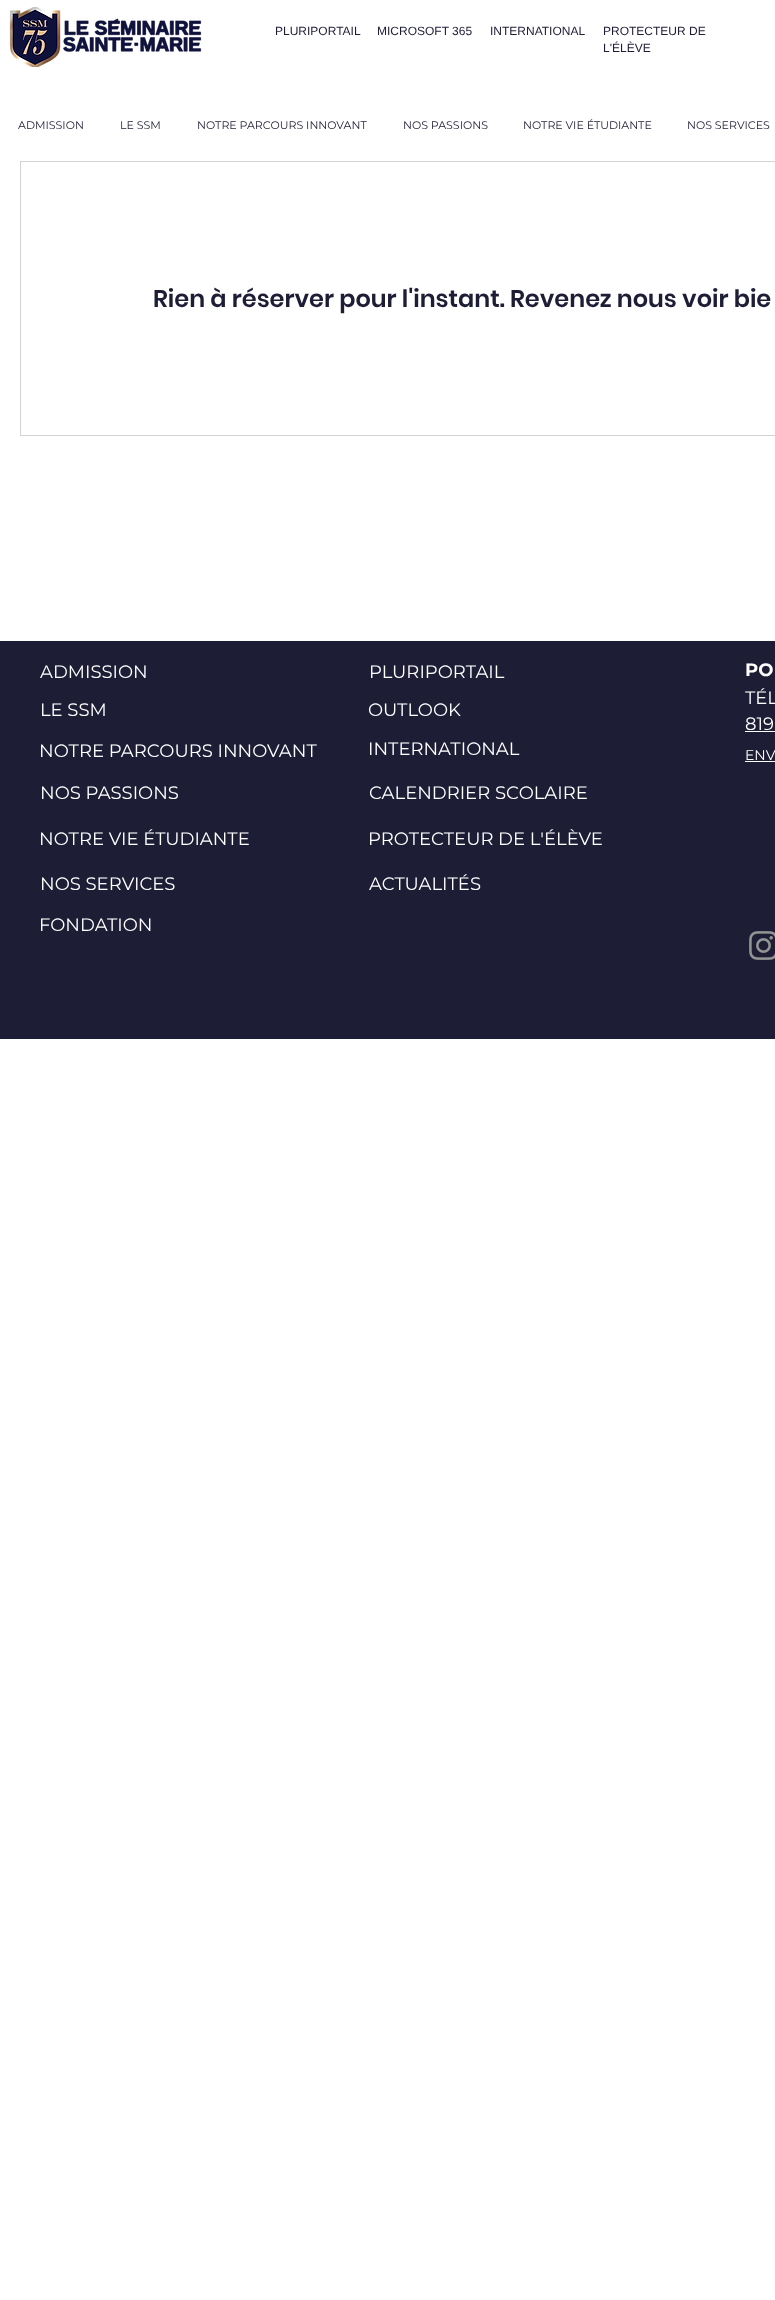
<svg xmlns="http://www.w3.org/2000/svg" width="775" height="2300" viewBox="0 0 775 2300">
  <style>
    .t1 { font: 12px Liberation Sans; fill: #1d1d36; }
    .t2 { font: 11px Montserrat; fill: #1d1d36; }
    .t3 { font: 600 24px Poppins; fill: #1d1d36; }
    .t4 { font: 18px Montserrat; fill: #fff; }
    .t5 { font: bold 18px Montserrat; fill: #fff; }
    .t6 { font: 14px Montserrat; fill: #fff; }
  </style>
  <rect width="100%" height="100%" fill="#fff"/>
  <image x="9" y="7" width="193" height="60" href="images/1.png"/>
  <text x="275" y="35" class="t1">PLURIPORTAIL</text>
  <text x="377" y="35" class="t1">MICROSOFT 365</text>
  <text x="490" y="35" class="t1">INTERNATIONAL</text>
  <text x="603" y="35" class="t1">PROTECTEUR DE</text>
  <text x="603" y="52" class="t1">L'ÉLÈVE</text>
  <text x="18" y="129" class="t2">ADMISSION</text>
  <text x="120" y="129" class="t2">LE SSM</text>
  <text x="197" y="129" class="t2">NOTRE PARCOURS INNOVANT</text>
  <text x="403" y="129" class="t2">NOS PASSIONS</text>
  <text x="523" y="129" class="t2">NOTRE VIE ÉTUDIANTE</text>
  <text x="687" y="129" class="t2">NOS SERVICES</text>
  <rect x="20.5" y="161.5" width="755" height="274" fill="none" stroke="#d2d2d7"/>
  <text x="153" y="307" class="t3">Rien à réserver pour l'instant. Revenez nous voir bie</text>
  <rect x="0" y="641" width="775" height="398" fill="#1d1d36"/>
  <text x="40" y="678" class="t4">ADMISSION</text>
  <text x="369" y="678" class="t4">PLURIPORTAIL</text>
  <text x="40" y="716" class="t4">LE SSM</text>
  <text x="368" y="716" class="t4">OUTLOOK</text>
  <text x="39" y="757" class="t4">NOTRE PARCOURS INNOVANT</text>
  <text x="368" y="755" class="t4">INTERNATIONAL</text>
  <text x="40" y="799" class="t4">NOS PASSIONS</text>
  <text x="369" y="799" class="t4">CALENDRIER SCOLAIRE</text>
  <text x="39" y="845" class="t4">NOTRE VIE ÉTUDIANTE</text>
  <text x="368" y="845" class="t4">PROTECTEUR DE L'ÉLÈVE</text>
  <text x="40" y="890" class="t4">NOS SERVICES</text>
  <text x="369" y="890" class="t4">ACTUALITÉS</text>
  <text x="39" y="931" class="t4">FONDATION</text>
  <image x="749" y="931" width="26" height="29" href="images/2.png"/>
  <text x="745" y="676" class="t5">PO</text>
  <text x="745" y="704" class="t4">TÉL</text>
  <text x="745" y="730" class="t4">819</text>
  <rect x="745" y="731" width="30" height="1" fill="#fff"/>
  <text x="745" y="760" class="t6">ENV</text>
  <rect x="745" y="761" width="30" height="1" fill="#fff"/>
</svg>
